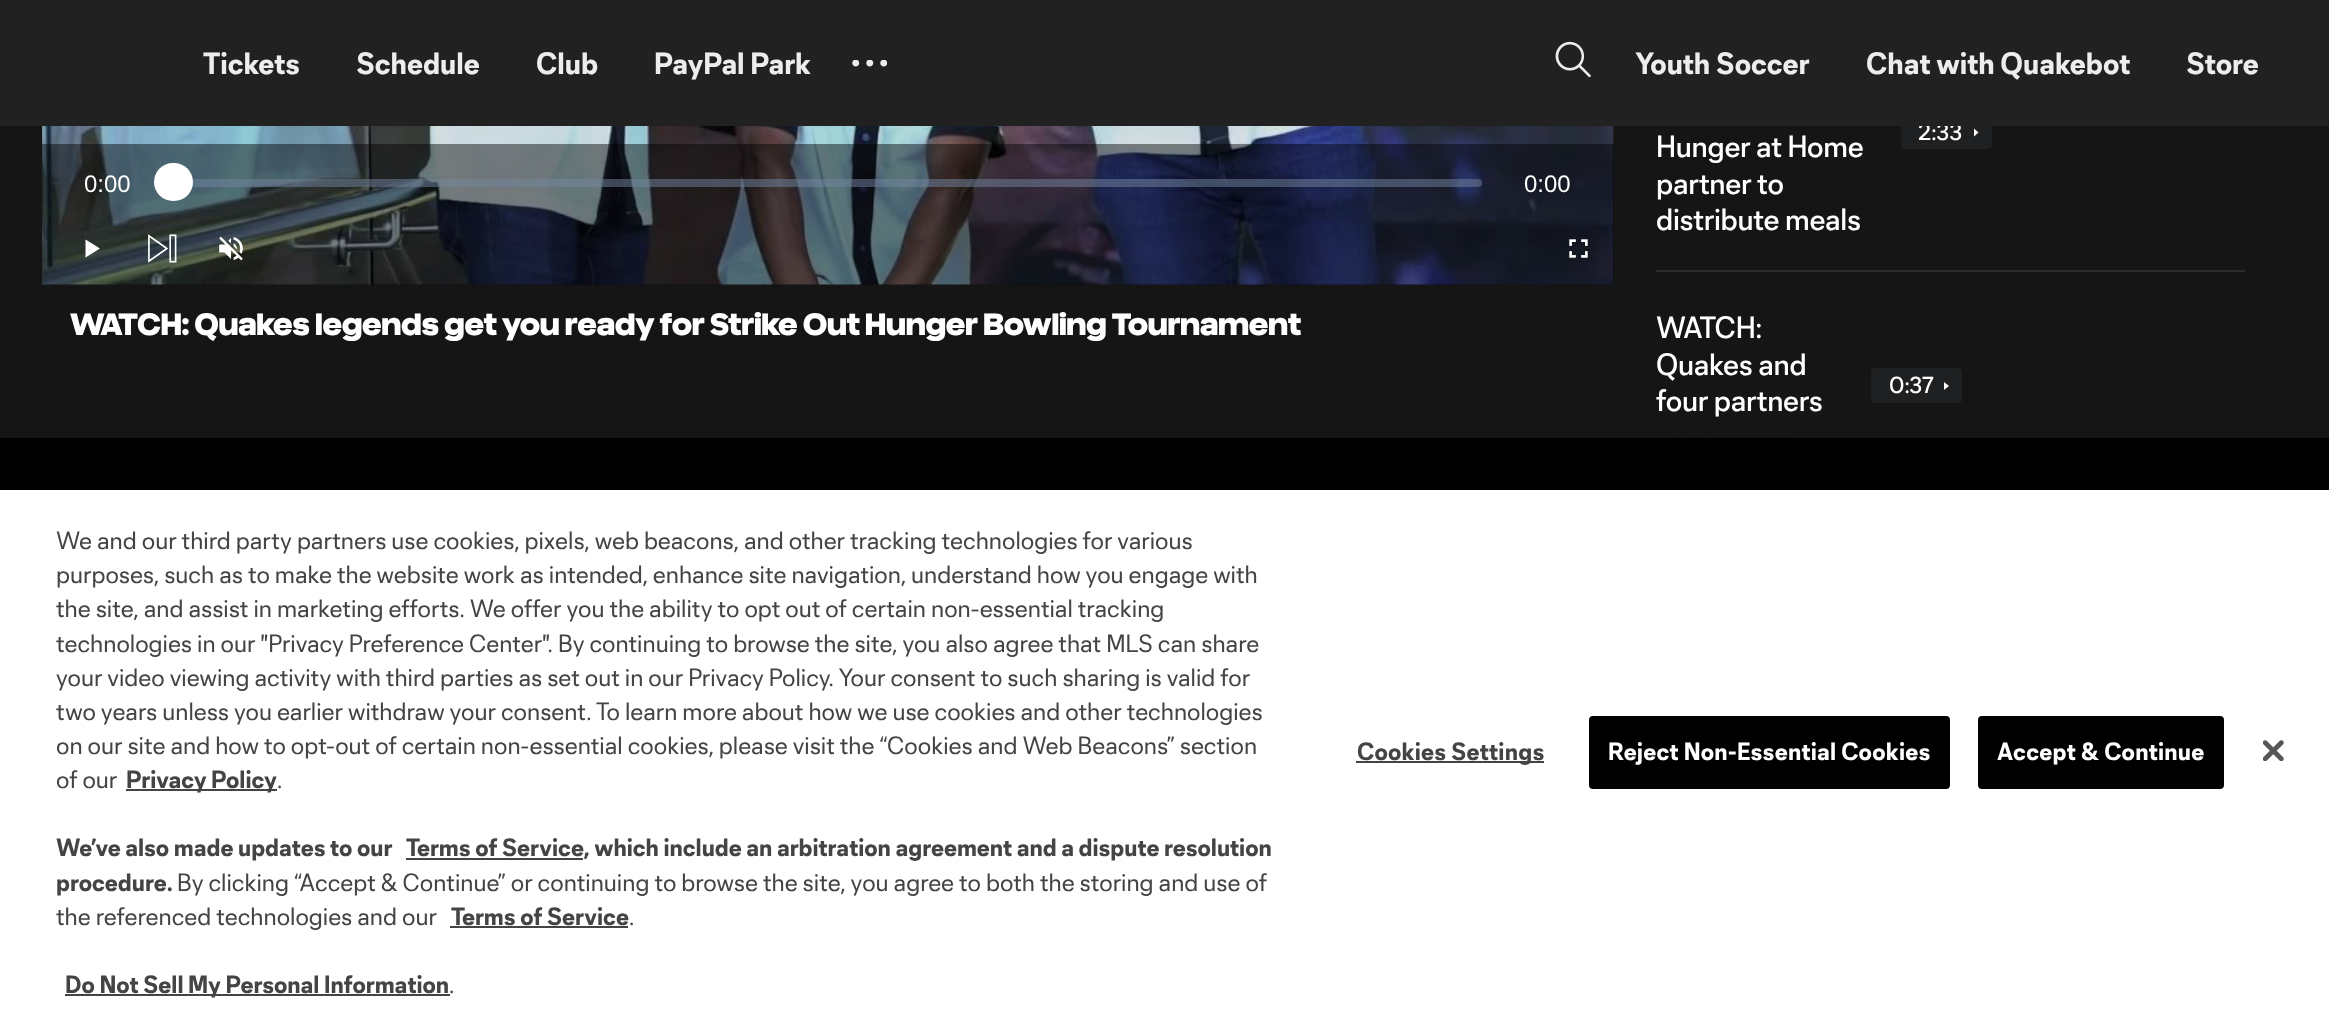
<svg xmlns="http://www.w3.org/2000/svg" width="2329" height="1020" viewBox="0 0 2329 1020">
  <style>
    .t1 { font: 500 21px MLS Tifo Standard; fill: #fff; }
    .t2 { font: bold 28px MLS Tifo Standard; fill: #ededed; }
    .t3 { font: 24px Liberation Sans; fill: #fff; }
    .t4 { font: 800 28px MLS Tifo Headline; letter-spacing: -0.28px; fill: #fff; }
    .t5 { font: 500 28px MLS Tifo Standard; letter-spacing: -0.28px; fill: #fff; }
    .t6 { font: 22.75px MLS Tifo Standard; fill: #444; }
    .t7 { font: bold 22.75px MLS Tifo Standard; fill: #444; }
    .t8 { font: bold 22.75px MLS Tifo Standard; letter-spacing: 0.25px; fill: #444; }
    .t9 { font: bold 22.75px MLS Tifo Standard; letter-spacing: 0.25px; fill: #fff; }
  </style>
  <rect width="100%" height="100%" fill="#151516"/>
  <rect x="1901" y="114" width="91" height="35" rx="4" fill="#1f2021"/>
  <text x="1918" y="140" class="t1">2:33</text>
  <rect x="0" y="0" width="2329" height="126" fill="#212121"/>
  <text x="203" y="74" class="t2">Tickets</text>
  <text x="356" y="74" class="t2">Schedule</text>
  <text x="536" y="74" class="t2">Club</text>
  <text x="654" y="74" class="t2">PayPal Park</text>
  <image x="852" y="60" width="35" height="7" href="images/1.png"/>
  <image x="1555" y="41" width="36" height="37" href="images/2.png"/>
  <text x="1635" y="74" class="t2">Youth Soccer</text>
  <text x="1866" y="74" class="t2">Chat with Quakebot</text>
  <text x="2186" y="74" class="t2">Store</text>
  <rect x="42" y="126" width="1572" height="159" fill="#151b17"/>
  <image x="42" y="126" width="1572" height="159" href="images/3.png"/>
  <rect x="42" y="144" width="1572" height="141" fill="#00000073"/>
  <text x="84" y="192" class="t3">0:00</text>
  <rect x="173" y="179" width="1309" height="8" rx="4" fill="#73859f80"/>
  <rect x="154" y="163" width="39" height="38" rx="19" fill="#fff"/>
  <text x="1524" y="192" class="t3">0:00</text>
  <path d="M85.5 239.5V257.5L100 248.5Z" fill="#fff"/>
  <image x="148" y="234" width="29" height="29" href="images/4.png"/>
  <image x="219" y="236" width="24" height="25" href="images/5.png"/>
  <image x="1569" y="239" width="19" height="19" href="images/6.png"/>
  <text x="70" y="335" class="t4">WATCH: Quakes legends get you ready for Strike Out Hunger Bowling Tournament</text>
  <path d="M1974 128.5V136.5L1978.5 132.5Z" fill="#fff" fill-rule="evenodd"/>
  <text x="1656" y="157" class="t5">Hunger at Home</text>
  <text x="1656" y="194" class="t5">partner to</text>
  <text x="1656" y="230" class="t5">distribute meals</text>
  <rect x="1656" y="270" width="589" height="2" fill="#2c2c2d"/>
  <text x="1656" y="338" class="t5">WATCH:</text>
  <text x="1656" y="375" class="t5">Quakes and</text>
  <text x="1656" y="411" class="t5">four partners</text>
  <rect x="1871" y="368" width="91" height="35" rx="4" fill="#1f2021"/>
  <text x="1889" y="393" class="t1">0:37</text>
  <path d="M1944 382V390L1949 386Z" fill="#fff" fill-rule="evenodd"/>
  <rect x="0" y="438" width="2329" height="52" fill="#000"/>
  <image x="1677" y="437" width="112" height="1" href="images/7.png"/>
  <rect x="0" y="490" width="2329" height="530" fill="#fff"/>
  <text x="56" y="549" class="t6">We and our third party partners use cookies, pixels, web beacons, and other tracking technologies for various</text>
  <text x="56" y="583" class="t6">purposes, such as to make the website work as intended, enhance site navigation, understand how you engage with</text>
  <text x="56" y="617" class="t6">the site, and assist in marketing efforts. We offer you the ability to opt out of certain non-essential tracking</text>
  <text x="56" y="652" class="t6">technologies in our "Privacy Preference Center".</text>
  <text x="558" y="652" class="t6">By continuing to browse the site, you also agree that MLS can share</text>
  <text x="56" y="686" class="t6">your video viewing activity with third parties as set out in our Privacy Policy. Your consent to such sharing is valid for</text>
  <text x="56" y="720" class="t6">two years unless you earlier withdraw your consent.</text>
  <text x="596" y="720" class="t6">To learn more about how we use cookies and other technologies</text>
  <text x="56" y="754" class="t6">on our site and how to opt-out of certain non-essential cookies, please visit the “Cookies and Web Beacons” section</text>
  <text x="56" y="788" class="t6">of our</text>
  <rect x="126" y="789" width="151" height="2" fill="#444"/>
  <text x="126" y="788" class="t7">Privacy Policy</text>
  <text x="277" y="788" class="t6">.</text>
  <text x="56" y="856" class="t7">We’ve also made updates to our</text>
  <rect x="406" y="858" width="177" height="2" fill="#444"/>
  <text x="406" y="856" class="t7">Terms of Service, which include an arbitration agreement and a dispute resolution</text>
  <text x="56" y="891" class="t7">procedure.</text>
  <text x="177" y="891" class="t6">By clicking “Accept &amp; Continue” or continuing to browse the site, you agree to both the storing and use of</text>
  <text x="56" y="925" class="t6">the referenced technologies and our</text>
  <text x="451" y="925" class="t7">Terms of Service</text>
  <rect x="450" y="926" width="178" height="2" fill="#444"/>
  <text x="629" y="925" class="t6">.</text>
  <rect x="65" y="994" width="385" height="2" fill="#444"/>
  <text x="65" y="993" class="t7">Do Not Sell My Personal Information</text>
  <text x="449" y="993" class="t6">.</text>
  <rect x="1356" y="761" width="188" height="2" fill="#444"/>
  <text x="1357" y="760" class="t8">Cookies Settings</text>
  <rect x="1590" y="717" width="359" height="71" rx="3" fill="#000" stroke="#000" stroke-width="2"/>
  <text x="1608" y="760" class="t9">Reject Non-Essential Cookies</text>
  <rect x="1979" y="717" width="244" height="71" rx="3" fill="#000" stroke="#000" stroke-width="2"/>
  <text x="1997" y="760" class="t9">Accept &amp; Continue</text>
  <image x="2263" y="740" width="21" height="21" href="images/8.png"/>
</svg>
